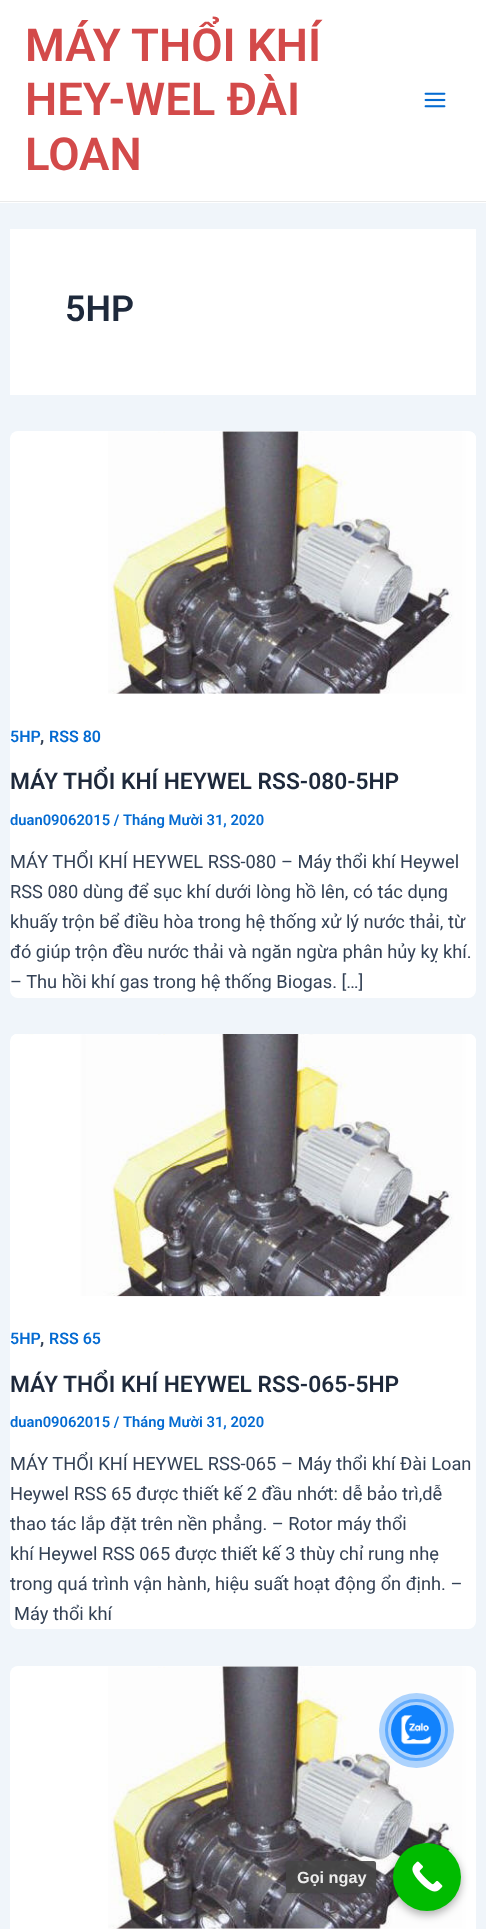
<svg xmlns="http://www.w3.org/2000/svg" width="486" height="1929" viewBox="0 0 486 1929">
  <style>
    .t1 { font: 600 45.5px Roboto; fill: #d34a4a; }
    .t2 { font: 600 36px Roboto; fill: #1e293b; }
    .t3 { font: 600 16px Roboto; fill: #046bd2; }
    .t4 { font: 600 18.25px Roboto; fill: #334155; }
    .t5 { font: 600 22.75px Roboto; fill: #1e293b; }
    .t6 { font: 600 14.75px Roboto; fill: #046bd2; }
    .t7 { font: 18.25px Roboto; fill: #334155; }
    .t8 { font: bold 16.25px Liberation Sans; fill: #ececec; }
  </style>
  <defs>
    <clipPath id="clip1"><path d="M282 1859H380V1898H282ZM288.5 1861H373.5C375 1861 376 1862 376 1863.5V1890.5C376 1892 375 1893 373.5 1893H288.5C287 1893 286 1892 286 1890.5V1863.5C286 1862 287 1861 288.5 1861Z" clip-rule="evenodd"/></clipPath>
  </defs>
  <rect width="100%" height="100%" fill="#f0f5fa"/>
  <rect x="0" y="0" width="486" height="203" fill="#fff"/>
  <rect x="0" y="201" width="486" height="1" fill="#eaeaea"/>
  <text x="25" y="61" class="t1">MÁY THỔI KHÍ</text>
  <text x="25" y="115" class="t1">HEY-WEL ĐÀI</text>
  <text x="25" y="170" class="t1">LOAN</text>
  <image x="424" y="92" width="22" height="16" href="images/1.png"/>
  <rect x="10" y="229" width="466" height="166" fill="#fff"/>
  <text x="65" y="321" class="t2">5HP</text>
  <rect x="10" y="431" width="466" height="567" rx="8" fill="#fff"/>
  <image x="108" y="431" width="368" height="263" href="images/2.png"/>
  <text x="10" y="742" class="t3">5HP</text>
  <text x="40" y="742" class="t4">,</text>
  <text x="49" y="742" class="t3">RSS 80</text>
  <text x="10" y="789" class="t5">MÁY THỔI KHÍ HEYWEL RSS-080-5HP</text>
  <text x="10" y="825" class="t6">duan09062015 /</text>
  <text x="123" y="825" class="t6">Tháng Mười 31, 2020</text>
  <text x="10" y="868" class="t7">MÁY THỔI KHÍ HEYWEL RSS-080 – Máy thổi khí Heywel</text>
  <text x="10" y="898" class="t7">RSS 080 dùng để sục khí dưới lòng hồ lên, có tác dụng</text>
  <text x="10" y="928" class="t7">khuấy trộn bể điều hòa trong hệ thống xử lý nước thải, từ</text>
  <text x="10" y="958" class="t7">đó giúp trộn đều nước thải và ngăn ngừa phân hủy kỵ khí.</text>
  <text x="10" y="988" class="t7">– Thu hồi khí gas trong hệ thống Biogas. […]</text>
  <rect x="10" y="1034" width="466" height="595" rx="8" fill="#fff"/>
  <image x="11" y="1034" width="465" height="263" href="images/3.png"/>
  <text x="10" y="1344" class="t3">5HP</text>
  <text x="40" y="1344" class="t4">,</text>
  <text x="49" y="1344" class="t3">RSS 65</text>
  <text x="10" y="1392" class="t5">MÁY THỔI KHÍ HEYWEL RSS-065-5HP</text>
  <text x="10" y="1427" class="t6">duan09062015 /</text>
  <text x="123" y="1427" class="t6">Tháng Mười 31, 2020</text>
  <text x="10" y="1470" class="t7">MÁY THỔI KHÍ HEYWEL RSS-065 – Máy thổi khí Đài Loan</text>
  <text x="10" y="1500" class="t7">Heywel RSS 65 được thiết kế 2 đầu nhớt: dễ bảo trì,dễ</text>
  <text x="10" y="1530" class="t7">thao tác lắp đặt trên nền phẳng. – Rotor máy thổi</text>
  <text x="10" y="1560" class="t7">khí Heywel RSS 065 được thiết kế 3 thùy chỉ rung nhẹ</text>
  <text x="10" y="1590" class="t7">trong quá trình vận hành, hiệu suất hoạt động ổn định. –</text>
  <text x="14" y="1620" class="t7">Máy thổi khí</text>
  <rect x="10" y="1666" width="466" height="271" rx="8" fill="#fff"/>
  <image x="108" y="1666" width="368" height="263" href="images/4.png"/>
  <rect x="386.5" y="1700.5" width="60" height="59" rx="29.5" fill="none" stroke="#87c0fd" stroke-width="3"/>
  <circle cx="416.5" cy="1730.5" r="37.5" fill="#1182fc57"/>
  <circle cx="416" cy="1730" r="25" fill="#1182fc"/>
  <image x="401" y="1715" width="31" height="30" href="images/5.png"/>
  <rect x="393" y="1846" width="68" height="69" rx="34" fill="#0000004d" filter="blur(4px)"/>
  <circle cx="427" cy="1877" r="34" fill="#0b0"/>
  <image x="412" y="1861" width="31" height="31" href="images/6.png"/>
  <g clip-path="url(#clip1)">
    <rect x="286" y="1863" width="90" height="31" rx="2.5" fill="#00000026" filter="blur(1px)"/>
  </g>
  <rect x="286" y="1861" width="90" height="32" rx="2.5" fill="#464646e6"/>
  <text x="297" y="1883" class="t8">Gọi ngay</text>
</svg>
